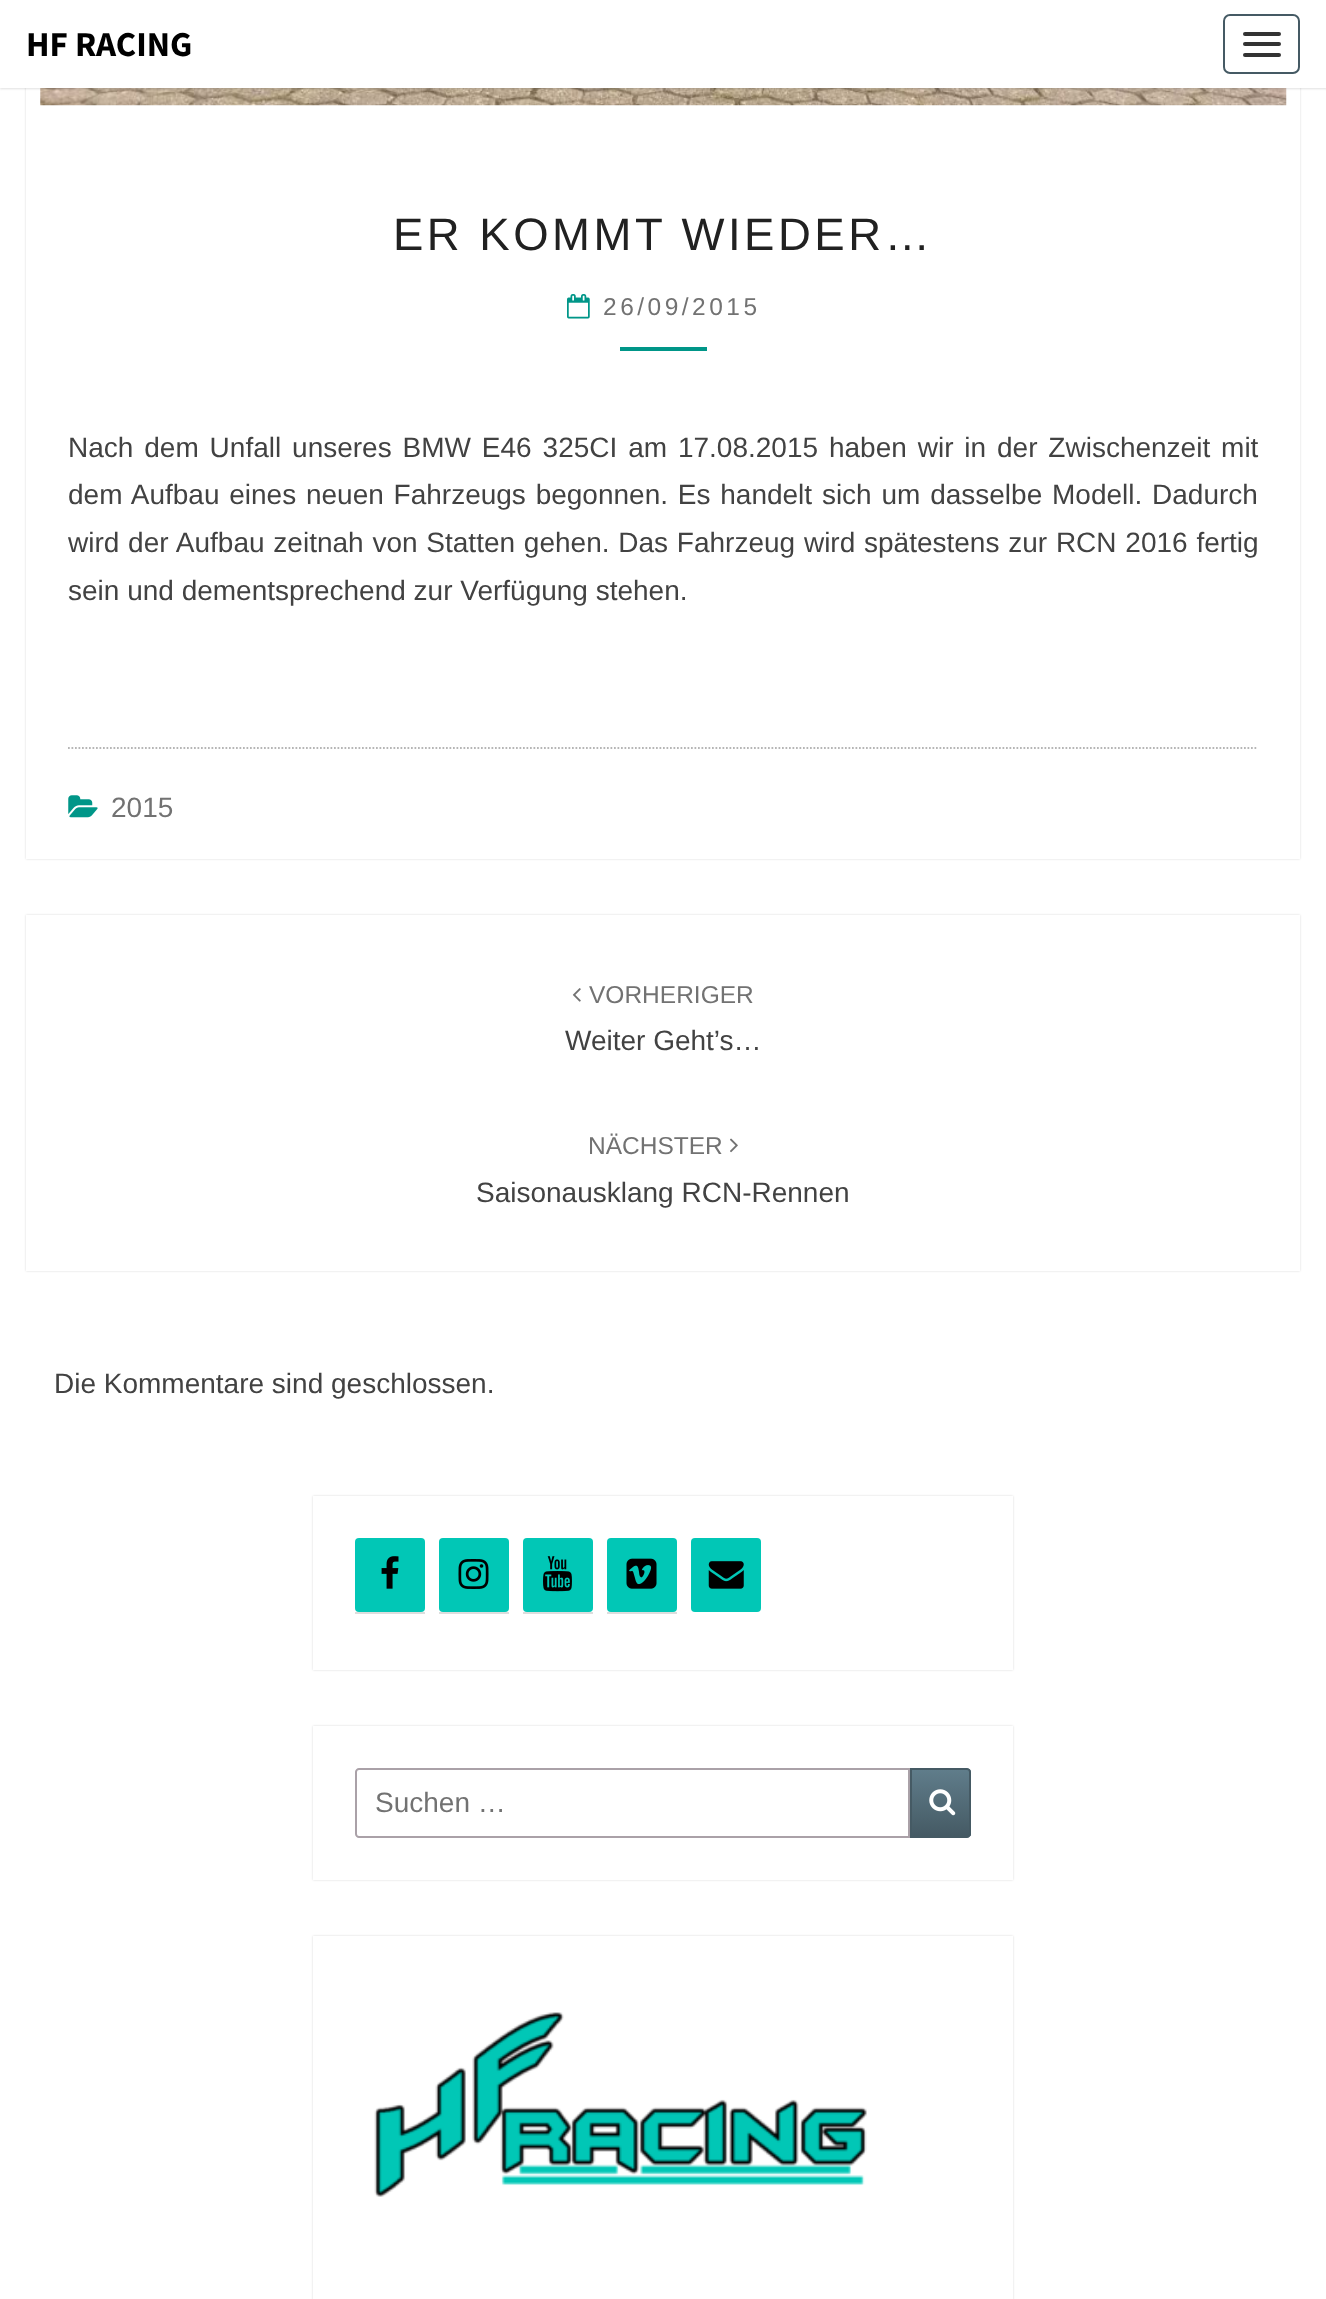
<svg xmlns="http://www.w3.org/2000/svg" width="1326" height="2299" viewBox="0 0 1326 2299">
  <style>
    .t1 { font: bold 35px Source Sans Pro; fill: #000; }
    .t2 { font: 45.5px Liberation Sans; letter-spacing: 3.5px; fill: #212121; }
    .t3 { font: 24.5px Liberation Sans; letter-spacing: 3.5px; fill: #727272; }
    .t4 { font: 28px Liberation Sans; fill: #424242; }
    .t5 { font: 28px Liberation Sans; fill: #727272; }
    .t6 { font: 24.5px Liberation Sans; fill: #727272; }
  </style>
  <defs>
    <clipPath id="clip1"><path d="M910 1768H967C969 1768 971 1770 971 1772V1834C971 1836 969 1838 967 1838H910Z"/></clipPath>
    <linearGradient id="g1" gradientUnits="userSpaceOnUse" x1="941" y1="1769" x2="941" y2="1836"><stop offset="0" stop-color="#607d8b"/><stop offset="1" stop-color="#455a64"/></linearGradient>
  </defs>
  <rect width="100%" height="100%" fill="#fff"/>
  <rect x="26" y="-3" width="1274" height="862" fill="#00000026" filter="blur(1px)"/>
  <rect x="26" y="88" width="1274" height="771" fill="#fff"/>
  <image x="40" y="88" width="1247" height="18" href="images/1.png"/>
  <rect x="0" y="2" width="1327" height="87" fill="#64646433" filter="blur(1px)"/>
  <rect x="0" y="0" width="1326" height="88" fill="#fff"/>
  <text x="26" y="56" class="t1">HF RACING</text>
  <rect x="1224" y="15" width="75" height="58" rx="6" fill="none" stroke="#455a64" stroke-width="2"/>
  <rect x="1243" y="32" width="38" height="4" rx="2" fill="#333"/>
  <rect x="1243" y="42" width="38" height="4" rx="2" fill="#333"/>
  <rect x="1243" y="53" width="38" height="4" rx="2" fill="#333"/>
  <text x="393" y="250" class="t2">ER KOMMT WIEDER…</text>
  <image x="567" y="294" width="23" height="25" href="images/2.png"/>
  <text x="603" y="315" class="t3">26/09/2015</text>
  <rect x="620" y="347" width="87" height="4" fill="#009688"/>
  <text x="68" y="457" word-spacing="3.1" class="t4">Nach dem Unfall unseres BMW E46 325CI am 17.08.2015 haben wir in der Zwischenzeit mit</text>
  <text x="68" y="504" word-spacing="2" class="t4">dem Aufbau eines neuen Fahrzeugs begonnen. Es handelt sich um dasselbe Modell. Dadurch</text>
  <text x="68" y="552" word-spacing="1" class="t4">wird der Aufbau zeitnah von Statten gehen. Das Fahrzeug wird spätestens zur RCN 2016 fertig</text>
  <text x="68" y="600" class="t4">sein und dementsprechend zur Verfügung stehen.</text>
  <path d="M68 748H1258" fill="none" stroke="#b6b6b6" stroke-width="1.8" stroke-dasharray="1.75 1.75"/>
  <image x="68" y="795" width="30" height="23" href="images/3.png"/>
  <text x="111" y="817" class="t5">2015</text>
  <rect x="26" y="915" width="1274" height="356" fill="#00000026" filter="blur(1px)"/>
  <rect x="26" y="915" width="1274" height="356" fill="#fff"/>
  <image x="572" y="988" width="9" height="14" href="images/4.png"/>
  <text x="589" y="1003" class="t6">VORHERIGER</text>
  <text x="565" y="1050" class="t4">Weiter Geht’s…</text>
  <text x="588" y="1154" class="t6">NÄCHSTER</text>
  <image x="730" y="1138" width="8" height="15" href="images/5.png"/>
  <text x="476" y="1202" class="t4">Saisonausklang RCN-Rennen</text>
  <text x="54" y="1393" class="t4">Die Kommentare sind geschlossen.</text>
  <rect x="313" y="1496" width="700" height="174" fill="#00000026" filter="blur(1px)"/>
  <rect x="313" y="1496" width="700" height="174" fill="#fff"/>
  <rect x="355" y="1612" width="70" height="2" fill="#ddd"/>
  <rect x="355" y="1538" width="70" height="74" rx="4" fill="#01c7b6"/>
  <image x="381" y="1556" width="18" height="33" href="images/6.png"/>
  <rect x="439" y="1612" width="70" height="2" fill="#ddd"/>
  <rect x="439" y="1538" width="70" height="74" rx="4" fill="#01c7b6"/>
  <image x="458" y="1559" width="31" height="30" href="images/7.png"/>
  <rect x="523" y="1612" width="70" height="2" fill="#ddd"/>
  <rect x="523" y="1538" width="70" height="74" rx="4" fill="#01c7b6"/>
  <image x="543" y="1556" width="29" height="36" href="images/8.png"/>
  <rect x="607" y="1612" width="70" height="2" fill="#ddd"/>
  <rect x="607" y="1538" width="70" height="74" rx="4" fill="#01c7b6"/>
  <image x="626" y="1558" width="31" height="31" href="images/9.png"/>
  <rect x="691" y="1538" width="70" height="74" rx="4" fill="#01c7b6"/>
  <image x="708" y="1561" width="36" height="28" href="images/10.png"/>
  <rect x="313" y="1726" width="700" height="154" fill="#00000026" filter="blur(1px)"/>
  <rect x="313" y="1726" width="700" height="154" fill="#fff"/>
  <path d="M359 1769H909V1837H359C357.5 1837 356 1835.5 356 1834V1772C356 1770.5 357.5 1769 359 1769Z" fill="none" stroke="#aaa1a8" stroke-width="2"/>
  <text x="375" y="1812" class="t5">Suchen …</text>
  <g clip-path="url(#clip1)">
    <rect x="912" y="1769" width="59" height="67" fill="url(#g1)"/>
  </g>
  <path d="M911 1769H967C968.5 1769 970 1770.5 970 1772V1834C970 1835.5 968.5 1837 967 1837H911Z" fill="none" stroke="#455a64" stroke-width="2"/>
  <image x="929" y="1789" width="27" height="27" href="images/11.png"/>
  <rect x="313" y="1936" width="700" height="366" fill="#00000026" filter="blur(1px)"/>
  <rect x="313" y="1936" width="700" height="363" fill="#fff"/>
  <image x="374" y="2012" width="493" height="185" href="images/12.png"/>
</svg>
